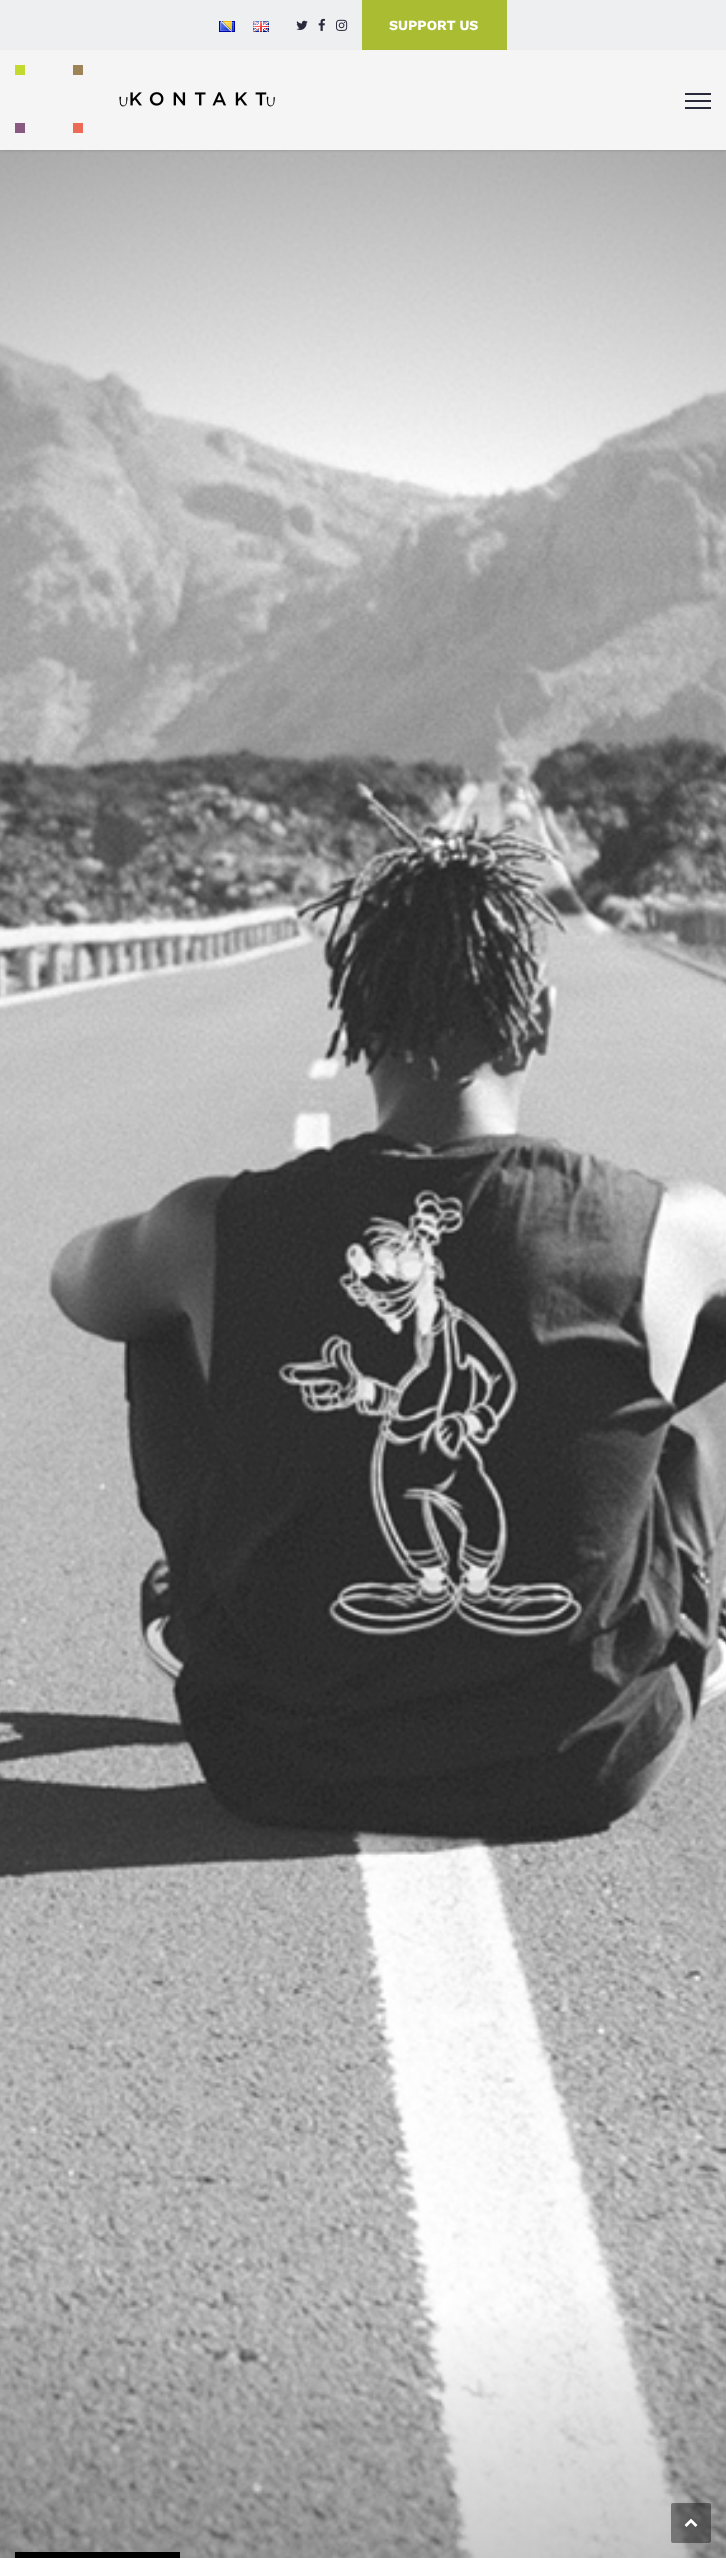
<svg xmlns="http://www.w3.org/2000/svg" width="726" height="2558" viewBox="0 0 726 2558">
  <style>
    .t1 { font: bold 14px Work Sans; fill: #fff; }
  </style>
  <defs>
    <radialGradient id="g1" gradientUnits="userSpaceOnUse" cx="363" cy="1399" r="1951"><stop offset="0.47" stop-color="#222" stop-opacity="0"/><stop offset="1" stop-color="#222"/></radialGradient>
  </defs>
  <rect width="100%" height="100%" fill="#fff"/>
  <rect x="0" y="0" width="726" height="50" fill="#edeff1"/>
  <image x="219" y="21" width="16" height="11" href="images/1.png"/>
  <image x="253" y="21" width="16" height="11" href="images/2.png"/>
  <image x="296" y="20" width="12" height="10" href="images/3.png"/>
  <image x="318" y="18" width="7" height="13" href="images/4.png"/>
  <image x="336" y="19" width="12" height="12" href="images/5.png"/>
  <rect x="362" y="0" width="145" height="50" fill="#aabc31"/>
  <text x="389" y="30" class="t1">SUPPORT US</text>
  <image x="0" y="150" width="726" height="2408" href="images/7.png"/>
  <rect x="0" y="150" width="726" height="2408" fill="url(#g1)"/>
  <rect x="0" y="51" width="726" height="100" fill="#0000001a" filter="blur(1px)"/>
  <rect x="0" y="50" width="726" height="100" fill="#f5f5f5"/>
  <image x="15" y="65" width="260" height="68" href="images/6.png"/>
  <rect x="685" y="93" width="26" height="2" fill="#28293a"/>
  <rect x="685" y="100" width="26" height="2" fill="#28293a"/>
  <rect x="685" y="107" width="26" height="2" fill="#28293a"/>
  <rect x="15" y="2552" width="165" height="6" fill="#000"/>
  <rect x="671" y="2503" width="40" height="40" rx="2" fill="#00000066"/>
  <image x="684" y="2518" width="14" height="9" href="images/8.png"/>
</svg>
